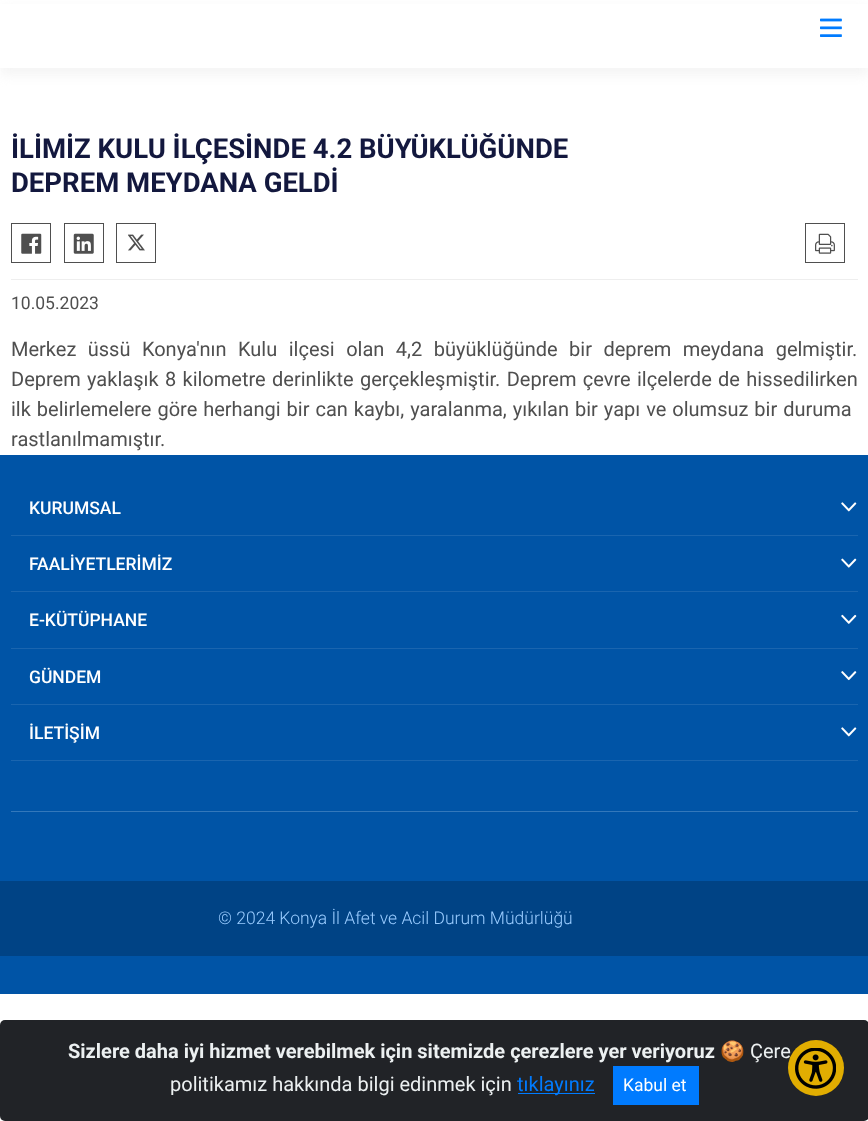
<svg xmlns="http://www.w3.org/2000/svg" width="868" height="1121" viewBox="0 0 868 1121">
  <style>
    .t1 { font: bold 27.5px Roboto; fill: #13183e; }
    .t2 { font: 17.5px Roboto; fill: #4f4f4f; }
    .t3 { font: 20px Roboto; fill: #4f4f4f; }
    .t4 { font: 500 17.5px Roboto; fill: #fff; }
    .t5 { font: 300 17.5px Roboto; fill: #9cf; }
    .t6 { font: bold 20px Roboto; fill: #ecf0f1; }
    .t7 { font: 20px Noto Color Emoji; fill: #ecf0f1; }
    .t8 { font: 20px Roboto; fill: #ecf0f1; }
    .t9 { font: 20px Roboto; fill: #007bff; }
    .t10 { font: 17.5px Roboto; fill: #fff; }
  </style>
  <rect width="100%" height="100%" fill="#fff"/>
  <rect x="0" y="8" width="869" height="67" fill="#eeeeee9e" filter="blur(6px)"/>
  <rect x="0" y="4" width="868" height="64" fill="#fff"/>
  <image x="820" y="18" width="22" height="19" href="images/1.png"/>
  <rect x="11" y="279" width="847" height="1" fill="#eee"/>
  <text x="11" y="158" class="t1">İLİMİZ KULU İLÇESİNDE 4.2 BÜYÜKLÜĞÜNDE</text>
  <text x="11" y="192" class="t1">DEPREM MEYDANA GELDİ</text>
  <rect x="11.5" y="223.5" width="39" height="39" fill="none" stroke="#4f4f4f"/>
  <image x="21" y="233" width="21" height="21" href="images/2.png"/>
  <rect x="64.5" y="223.5" width="39" height="39" fill="none" stroke="#4f4f4f"/>
  <image x="73" y="233" width="21" height="21" href="images/3.png"/>
  <rect x="116.5" y="223.5" width="39" height="39" fill="none" stroke="#4f4f4f"/>
  <image x="128" y="234" width="17" height="17" href="images/4.png"/>
  <rect x="805.5" y="223.5" width="39" height="39" fill="none" stroke="#4f4f4f"/>
  <image x="815" y="233" width="20" height="21" href="images/5.png"/>
  <text x="11" y="309" class="t2">10.05.2023</text>
  <text x="11" y="356" word-spacing="6.5" class="t3">Merkez üssü Konya'nın Kulu ilçesi olan 4,2 büyüklüğünde bir deprem meydana gelmiştir.</text>
  <text x="11" y="386" word-spacing="1.4" class="t3">Deprem yaklaşık 8 kilometre derinlikte gerçekleşmiştir. Deprem çevre ilçelerde de hissedilirken</text>
  <text x="11" y="416" word-spacing="1" class="t3">ilk belirlemelere göre herhangi bir can kaybı, yaralanma, yıkılan bir yapı ve olumsuz bir duruma</text>
  <text x="11" y="446" class="t3">rastlanılmamıştır.</text>
  <rect x="0" y="455" width="868" height="426" fill="#0054a6"/>
  <rect x="11" y="535" width="847" height="1" fill="#1a65af"/>
  <text x="29" y="514" class="t4">KURUMSAL</text>
  <image x="841" y="502" width="16" height="10" href="images/6.png"/>
  <rect x="11" y="591" width="847" height="1" fill="#1a65af"/>
  <text x="29" y="570" class="t4">FAALİYETLERİMİZ</text>
  <image x="841" y="558" width="16" height="10" href="images/7.png"/>
  <rect x="11" y="648" width="847" height="1" fill="#1a65af"/>
  <text x="29" y="626" class="t4">E-KÜTÜPHANE</text>
  <image x="841" y="614" width="16" height="10" href="images/8.png"/>
  <rect x="11" y="704" width="847" height="1" fill="#1a65af"/>
  <text x="29" y="683" class="t4">GÜNDEM</text>
  <image x="841" y="671" width="16" height="10" href="images/9.png"/>
  <rect x="11" y="760" width="847" height="1" fill="#1a65af"/>
  <text x="29" y="739" class="t4">İLETİŞİM</text>
  <image x="841" y="727" width="16" height="10" href="images/6.png"/>
  <rect x="11" y="811" width="847" height="1" fill="#3378bb"/>
  <rect x="0" y="881" width="868" height="75" fill="#004385"/>
  <rect x="0" y="956" width="868" height="38" fill="#0054a6"/>
  <text x="218" y="924" class="t5">© 2024 Konya İl Afet ve Acil Durum Müdürlüğü</text>
  <rect x="0" y="1020" width="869" height="101" rx="5" fill="#212327"/>
  <text x="68" y="1058" class="t6">Sizlere daha iyi hizmet verebilmek için sitemizde çerezlere yer veriyoruz</text>
  <text x="720" y="1058" class="t7">🍪</text>
  <text x="750" y="1058" class="t8">Çere</text>
  <text x="170" y="1091" class="t8">politikamız hakkında bilgi edinmek için</text>
  <rect x="518" y="1093" width="77" height="1" fill="#007bff"/>
  <text x="517" y="1091" class="t9">tıklayınız</text>
  <rect x="613" y="1066" width="86" height="39" fill="#007bff"/>
  <text x="623" y="1091" class="t10">Kabul et</text>
  <circle cx="816" cy="1068" r="28" fill="#e1ad01"/>
  <image x="795" y="1048" width="41" height="41" href="images/10.png"/>
</svg>
